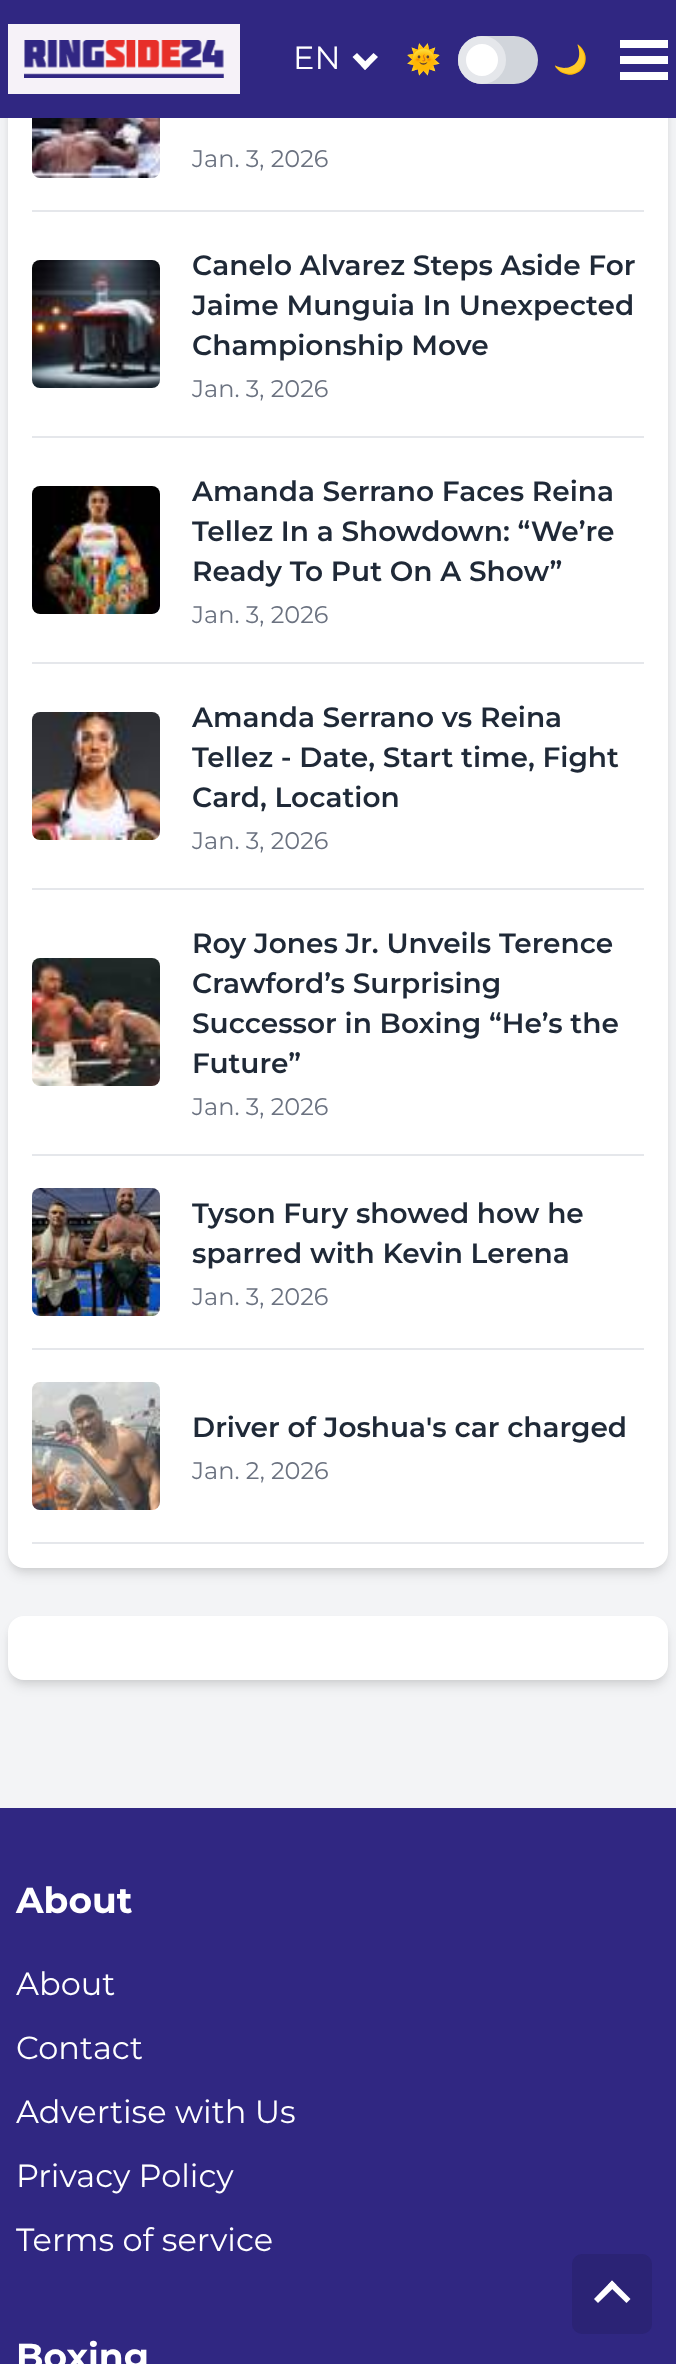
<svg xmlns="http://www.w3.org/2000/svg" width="676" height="2364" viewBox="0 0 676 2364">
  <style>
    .t1 { font: 32px Montserrat; fill: #fff; }
    .t2 { font: 28px Noto Color Emoji; fill: #fff; }
    .t3 { font: 24px Montserrat; fill: #6b7280; }
    .t4 { font: 600 28px Montserrat; fill: #1f2937; }
    .t5 { font: bold 36px Montserrat; fill: #fff; }
  </style>
  <rect width="100%" height="100%" fill="#f3f4f6"/>
  <rect x="12" y="-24" width="652" height="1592" rx="12" fill="#0000001a" filter="blur(4px)"/>
  <rect x="10" y="-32" width="656" height="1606" rx="14" fill="#0000001a" filter="blur(6px)"/>
  <rect x="8" y="-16" width="660" height="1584" rx="16" fill="#fff"/>
  <rect x="0" y="0" width="676" height="118" fill="#302782"/>
  <rect x="8" y="24" width="232" height="70" fill="#f6f2f8"/>
  <image x="24" y="40" width="200" height="38" href="images/1.png"/>
  <text x="293" y="69" class="t1">EN</text>
  <path d="M373.5 53L378 57L365 70L361 65.5Z" fill="#fff"/>
  <path d="M357 53L369.5 65.5L365 70L352.5 57Z" fill="#fff"/>
  <text x="406" y="69" class="t2">🌞</text>
  <rect x="458" y="36" width="80" height="48" rx="24" fill="#d1d5db"/>
  <circle cx="482" cy="60" r="20" fill="#fff" stroke="#e5e7eb" stroke-width="8"/>
  <text x="553" y="69" class="t2">🌙</text>
  <rect x="620" y="40" width="48" height="8" fill="#fff"/>
  <rect x="620" y="56" width="48" height="8" fill="#fff"/>
  <rect x="620" y="72" width="48" height="8" fill="#fff"/>
  <rect x="32" y="210" width="612" height="2" fill="#e5e7eb"/>
  <image x="32" y="118" width="128" height="60" href="images/2.png"/>
  <text x="192" y="167" class="t3">Jan. 3, 2026</text>
  <rect x="32" y="436" width="612" height="2" fill="#e5e7eb"/>
  <image x="32" y="260" width="128" height="128" href="images/3.png"/>
  <text x="192" y="275" class="t4">Canelo Alvarez Steps Aside For</text>
  <text x="192" y="315" class="t4">Jaime Munguia In Unexpected</text>
  <text x="192" y="355" class="t4">Championship Move</text>
  <text x="192" y="397" class="t3">Jan. 3, 2026</text>
  <rect x="32" y="662" width="612" height="2" fill="#e5e7eb"/>
  <image x="32" y="486" width="128" height="128" href="images/4.png"/>
  <text x="192" y="501" class="t4">Amanda Serrano Faces Reina</text>
  <text x="192" y="541" class="t4">Tellez In a Showdown: “We’re</text>
  <text x="192" y="581" class="t4">Ready To Put On A Show”</text>
  <text x="192" y="623" class="t3">Jan. 3, 2026</text>
  <rect x="32" y="888" width="612" height="2" fill="#e5e7eb"/>
  <image x="32" y="712" width="128" height="128" href="images/5.png"/>
  <text x="192" y="727" class="t4">Amanda Serrano vs Reina</text>
  <text x="192" y="767" class="t4">Tellez - Date, Start time, Fight</text>
  <text x="192" y="807" class="t4">Card, Location</text>
  <text x="192" y="849" class="t3">Jan. 3, 2026</text>
  <rect x="32" y="1154" width="612" height="2" fill="#e5e7eb"/>
  <image x="32" y="958" width="128" height="128" href="images/6.png"/>
  <text x="192" y="953" class="t4">Roy Jones Jr. Unveils Terence</text>
  <text x="192" y="993" class="t4">Crawford’s Surprising</text>
  <text x="192" y="1033" class="t4">Successor in Boxing “He’s the</text>
  <text x="192" y="1073" class="t4">Future”</text>
  <text x="192" y="1115" class="t3">Jan. 3, 2026</text>
  <rect x="32" y="1348" width="612" height="2" fill="#e5e7eb"/>
  <image x="32" y="1188" width="128" height="128" href="images/7.png"/>
  <text x="192" y="1223" class="t4">Tyson Fury showed how he</text>
  <text x="192" y="1263" class="t4">sparred with Kevin Lerena</text>
  <text x="192" y="1305" class="t3">Jan. 3, 2026</text>
  <rect x="32" y="1542" width="612" height="2" fill="#e5e7eb"/>
  <image x="32" y="1382" width="128" height="128" href="images/8.png"/>
  <text x="192" y="1437" class="t4">Driver of Joshua's car charged</text>
  <text x="192" y="1479" class="t3">Jan. 2, 2026</text>
  <rect x="12" y="1624" width="652" height="56" rx="12" fill="#0000001a" filter="blur(4px)"/>
  <rect x="10" y="1626" width="656" height="60" rx="14" fill="#0000001a" filter="blur(6px)"/>
  <rect x="8" y="1616" width="660" height="64" rx="16" fill="#fff"/>
  <rect x="0" y="1808" width="676" height="556" fill="#302782"/>
  <text x="16" y="1913" class="t5">About</text>
  <text x="16" y="1995" class="t1">About</text>
  <text x="16" y="2059" class="t1">Contact</text>
  <text x="16" y="2123" class="t1">Advertise with Us</text>
  <text x="16" y="2187" class="t1">Privacy Policy</text>
  <text x="16" y="2251" class="t1">Terms of service</text>
  <text x="16" y="2369" class="t5">Boxing</text>
  <rect x="572" y="2254" width="80" height="80" rx="10" fill="#2b2375"/>
  <path d="M598 2303L594 2299L612 2280.5L616.5 2285Z" fill="#fff"/>
  <path d="M626.5 2303L608 2285L612 2280.5L630.5 2299Z" fill="#fff"/>
</svg>
